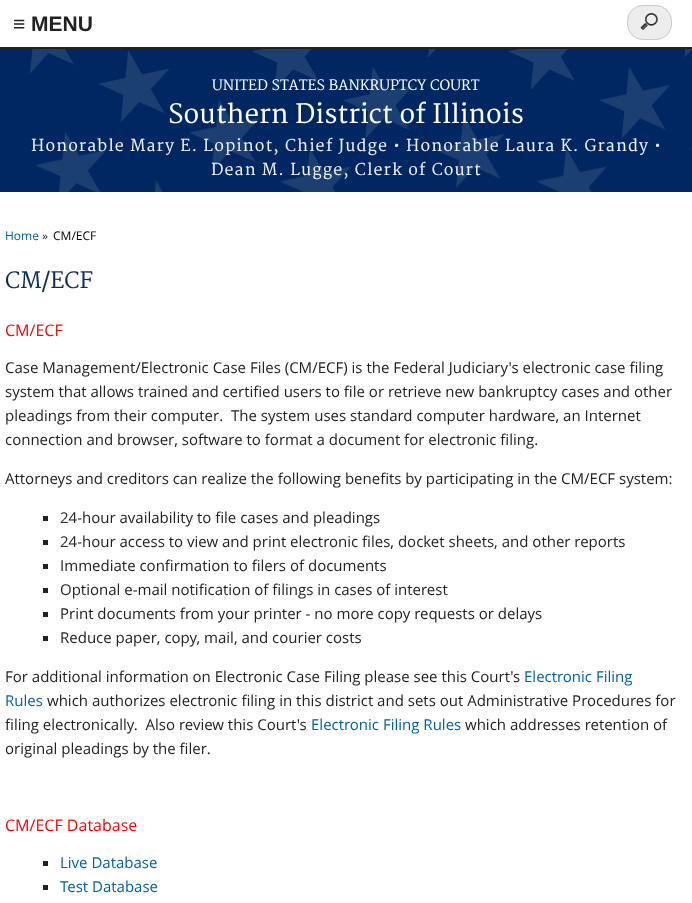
<svg xmlns="http://www.w3.org/2000/svg" width="692" height="903" viewBox="0 0 692 903">
  <style>
    .t1 { font: bold 21px Liberation Sans; fill: #212121; }
    .t2 { font: 14px Merriweather; fill: #fff; }
    .t3 { font: 26px Merriweather; fill: #fff; }
    .t4 { font: 16px Merriweather; letter-spacing: 1.1px; fill: #f1f1f1; }
    .t5 { font: 12px Open Sans; fill: #005ea2; }
    .t6 { font: 12px Open Sans; fill: #212121; }
    .t7 { font: 12px Open Sans; fill: #000; }
    .t8 { font: 22px Merriweather; fill: #112e51; }
    .t9 { font: 16px Open Sans; fill: #f00; }
    .t10 { font: 15px Open Sans; fill: #212121; }
    .t11 { font: 15px Open Sans; fill: #005ea2; }
  </style>
  <rect width="100%" height="100%" fill="#fff"/>
  <rect x="0" y="47" width="692" height="2" fill="#212121"/>
  <text x="13" y="31" class="t1">≡ MENU</text>
  <rect x="0" y="49" width="30" height="143" fill="#002761"/>
  <image x="30" y="49" width="662" height="143" href="images/1.png"/>
  <rect x="627" y="5" width="45" height="35" rx="16" fill="#ededed"/>
  <image x="640" y="13" width="18" height="18" href="images/2.png"/>
  <rect x="627.5" y="5.5" width="44" height="34" rx="15.5" fill="none" stroke="#ccc"/>
  <text x="212" y="90" class="t2">UNITED STATES BANKRUPTCY COURT</text>
  <text x="168" y="123" class="t3">Southern District of Illinois</text>
  <text x="31" y="151" class="t4">Honorable Mary E. Lopinot, Chief Judge • Honorable Laura K. Grandy •</text>
  <text x="211" y="175" class="t4">Dean M. Lugge, Clerk of Court</text>
  <text x="5" y="240" class="t5">Home</text>
  <text x="42" y="240" class="t6">»</text>
  <text x="53" y="240" class="t7">CM/ECF</text>
  <text x="5" y="288" class="t8">CM/ECF</text>
  <text x="5" y="336" class="t9">CM/ECF</text>
  <text x="5" y="373" class="t10">Case Management/Electronic Case Files (CM/ECF) is the Federal Judiciary's electronic case filing</text>
  <text x="5" y="397" class="t10">system that allows trained and certified users to file or retrieve new bankruptcy cases and other</text>
  <text x="5" y="421" class="t10" xml:space="preserve">pleadings from their computer.  The system uses standard computer hardware, an Internet</text>
  <text x="5" y="445" class="t10">connection and browser, software to format a document for electronic filing.</text>
  <text x="5" y="484" class="t10">Attorneys and creditors can realize the following benefits by participating in the CM/ECF system:</text>
  <rect x="43" y="516" width="5" height="5" fill="#212121"/>
  <text x="60" y="523" class="t10">24-hour availability to file cases and pleadings</text>
  <rect x="43" y="540" width="5" height="5" fill="#212121"/>
  <text x="60" y="547" class="t10">24-hour access to view and print electronic files, docket sheets, and other reports</text>
  <rect x="43" y="564" width="5" height="5" fill="#212121"/>
  <text x="60" y="571" class="t10">Immediate confirmation to filers of documents</text>
  <rect x="43" y="588" width="5" height="5" fill="#212121"/>
  <text x="60" y="595" class="t10">Optional e-mail notification of filings in cases of interest</text>
  <rect x="43" y="612" width="5" height="5" fill="#212121"/>
  <text x="60" y="619" class="t10">Print documents from your printer - no more copy requests or delays</text>
  <rect x="43" y="636" width="5" height="5" fill="#212121"/>
  <text x="60" y="643" class="t10">Reduce paper, copy, mail, and courier costs</text>
  <text x="5" y="682" class="t10">For additional information on Electronic Case Filing please see this Court's</text>
  <text x="524" y="682" class="t11">Electronic Filing</text>
  <text x="5" y="706" class="t11">Rules</text>
  <text x="47" y="706" class="t10">which authorizes electronic filing in this district and sets out Administrative Procedures for</text>
  <text x="5" y="730" class="t10" xml:space="preserve">filing electronically.  Also review this Court's</text>
  <text x="311" y="730" class="t11">Electronic Filing Rules</text>
  <text x="465" y="730" class="t10">which addresses retention of</text>
  <text x="5" y="754" class="t10">original pleadings by the filer.</text>
  <text x="5" y="831" class="t9">CM/ECF Database</text>
  <rect x="43" y="861" width="5" height="5" fill="#212121"/>
  <text x="60" y="868" class="t11">Live Database</text>
  <rect x="43" y="885" width="5" height="5" fill="#212121"/>
  <text x="60" y="892" class="t11">Test Database</text>
</svg>
